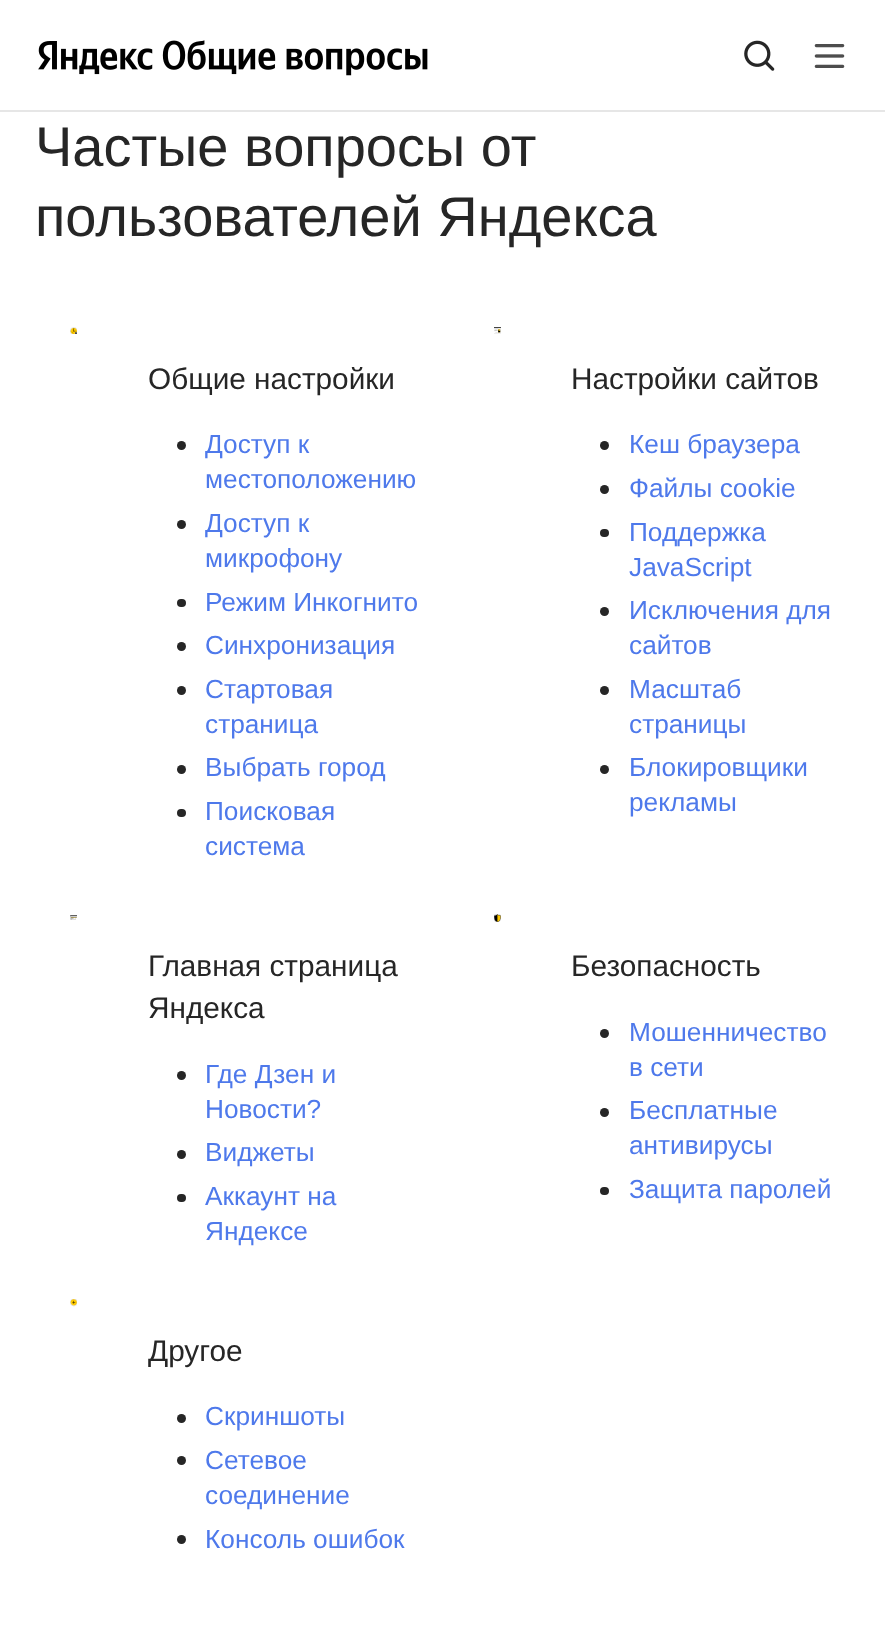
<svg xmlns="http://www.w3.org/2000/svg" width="885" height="1642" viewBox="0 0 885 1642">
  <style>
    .t1 { font: 56px Liberation Sans; fill: #262626; }
    .t2 { font: 29.75px Liberation Sans; fill: #262626; }
    .t3 { font: 26.25px Liberation Sans; fill: #4e79eb; }
  </style>
  <rect width="100%" height="100%" fill="#fff"/>
  <rect x="0" y="110" width="885" height="2" fill="#e6e6e6"/>
  <image x="38" y="40" width="390" height="36" href="images/1.png"/>
  <image x="744" y="40" width="31" height="31" href="images/2.png"/>
  <image x="814" y="44" width="31" height="24" href="images/3.png"/>
  <text x="35" y="166" class="t1">Частые вопросы от</text>
  <text x="35" y="236" class="t1">пользователей Яндекса</text>
  <image x="70" y="327" width="7" height="7" href="images/4.png"/>
  <image x="494" y="327" width="7" height="7" href="images/5.png"/>
  <text x="148" y="389" class="t2">Общие настройки</text>
  <circle cx="181.5" cy="445.5" r="4.5" fill="#262626"/>
  <text x="205" y="453" class="t3">Доступ к</text>
  <text x="205" y="488" class="t3">местоположению</text>
  <circle cx="181.5" cy="524.5" r="4.5" fill="#262626"/>
  <text x="205" y="532" class="t3">Доступ к</text>
  <text x="205" y="567" class="t3">микрофону</text>
  <rect x="177" y="599" width="9" height="8" rx="4" fill="#262626"/>
  <text x="205" y="611" class="t3">Режим Инкогнито</text>
  <circle cx="181.5" cy="646.5" r="4.5" fill="#262626"/>
  <text x="205" y="654" class="t3">Синхронизация</text>
  <circle cx="181.5" cy="690.5" r="4.5" fill="#262626"/>
  <text x="205" y="698" class="t3">Стартовая</text>
  <text x="205" y="733" class="t3">страница</text>
  <circle cx="181.5" cy="769.5" r="4.5" fill="#262626"/>
  <text x="205" y="776" class="t3">Выбрать город</text>
  <rect x="177" y="809" width="9" height="8" rx="4" fill="#262626"/>
  <text x="205" y="820" class="t3">Поисковая</text>
  <text x="205" y="855" class="t3">система</text>
  <text x="571" y="389" class="t2">Настройки сайтов</text>
  <circle cx="604.5" cy="445.5" r="4.5" fill="#262626"/>
  <text x="629" y="453" class="t3">Кеш браузера</text>
  <circle cx="604.5" cy="489.5" r="4.5" fill="#262626"/>
  <text x="629" y="497" class="t3">Файлы cookie</text>
  <rect x="600" y="529" width="9" height="8" rx="4" fill="#262626"/>
  <text x="629" y="541" class="t3">Поддержка</text>
  <text x="629" y="576" class="t3">JavaScript</text>
  <circle cx="604.5" cy="611.5" r="4.5" fill="#262626"/>
  <text x="629" y="619" class="t3">Исключения для</text>
  <text x="629" y="654" class="t3">сайтов</text>
  <circle cx="604.5" cy="690.5" r="4.5" fill="#262626"/>
  <text x="629" y="698" class="t3">Масштаб</text>
  <text x="629" y="733" class="t3">страницы</text>
  <circle cx="604.5" cy="769.5" r="4.5" fill="#262626"/>
  <text x="629" y="776" class="t3">Блокировщики</text>
  <text x="629" y="811" class="t3">рекламы</text>
  <image x="70" y="915" width="7" height="5" href="images/6.png"/>
  <image x="494" y="914" width="7" height="8" href="images/7.png"/>
  <text x="148" y="976" class="t2">Главная страница</text>
  <text x="148" y="1018" class="t2">Яндекса</text>
  <circle cx="181.5" cy="1075.5" r="4.5" fill="#262626"/>
  <text x="205" y="1083" class="t3">Где Дзен и</text>
  <text x="205" y="1118" class="t3">Новости?</text>
  <circle cx="181.5" cy="1154.5" r="4.5" fill="#262626"/>
  <text x="205" y="1161" class="t3">Виджеты</text>
  <rect x="177" y="1194" width="9" height="8" rx="4" fill="#262626"/>
  <text x="205" y="1205" class="t3">Аккаунт на</text>
  <text x="205" y="1240" class="t3">Яндексе</text>
  <text x="571" y="976" class="t2">Безопасность</text>
  <circle cx="604.5" cy="1033.5" r="4.5" fill="#262626"/>
  <text x="629" y="1041" class="t3">Мошенничество</text>
  <text x="629" y="1076" class="t3">в сети</text>
  <circle cx="604.5" cy="1112.5" r="4.5" fill="#262626"/>
  <text x="629" y="1119" class="t3">Бесплатные</text>
  <text x="629" y="1154" class="t3">антивирусы</text>
  <rect x="600" y="1187" width="9" height="8" rx="4" fill="#262626"/>
  <text x="629" y="1198" class="t3">Защита паролей</text>
  <image x="70" y="1299" width="7" height="8" href="images/8.png"/>
  <text x="148" y="1361" class="t2">Другое</text>
  <circle cx="181.5" cy="1418.5" r="4.5" fill="#262626"/>
  <text x="205" y="1425" class="t3">Скриншоты</text>
  <circle cx="181.5" cy="1460.5" r="4.5" fill="#262626"/>
  <text x="205" y="1469" class="t3">Сетевое</text>
  <text x="205" y="1504" class="t3">соединение</text>
  <circle cx="181.5" cy="1539.5" r="4.5" fill="#262626"/>
  <text x="205" y="1548" class="t3">Консоль ошибок</text>
</svg>
